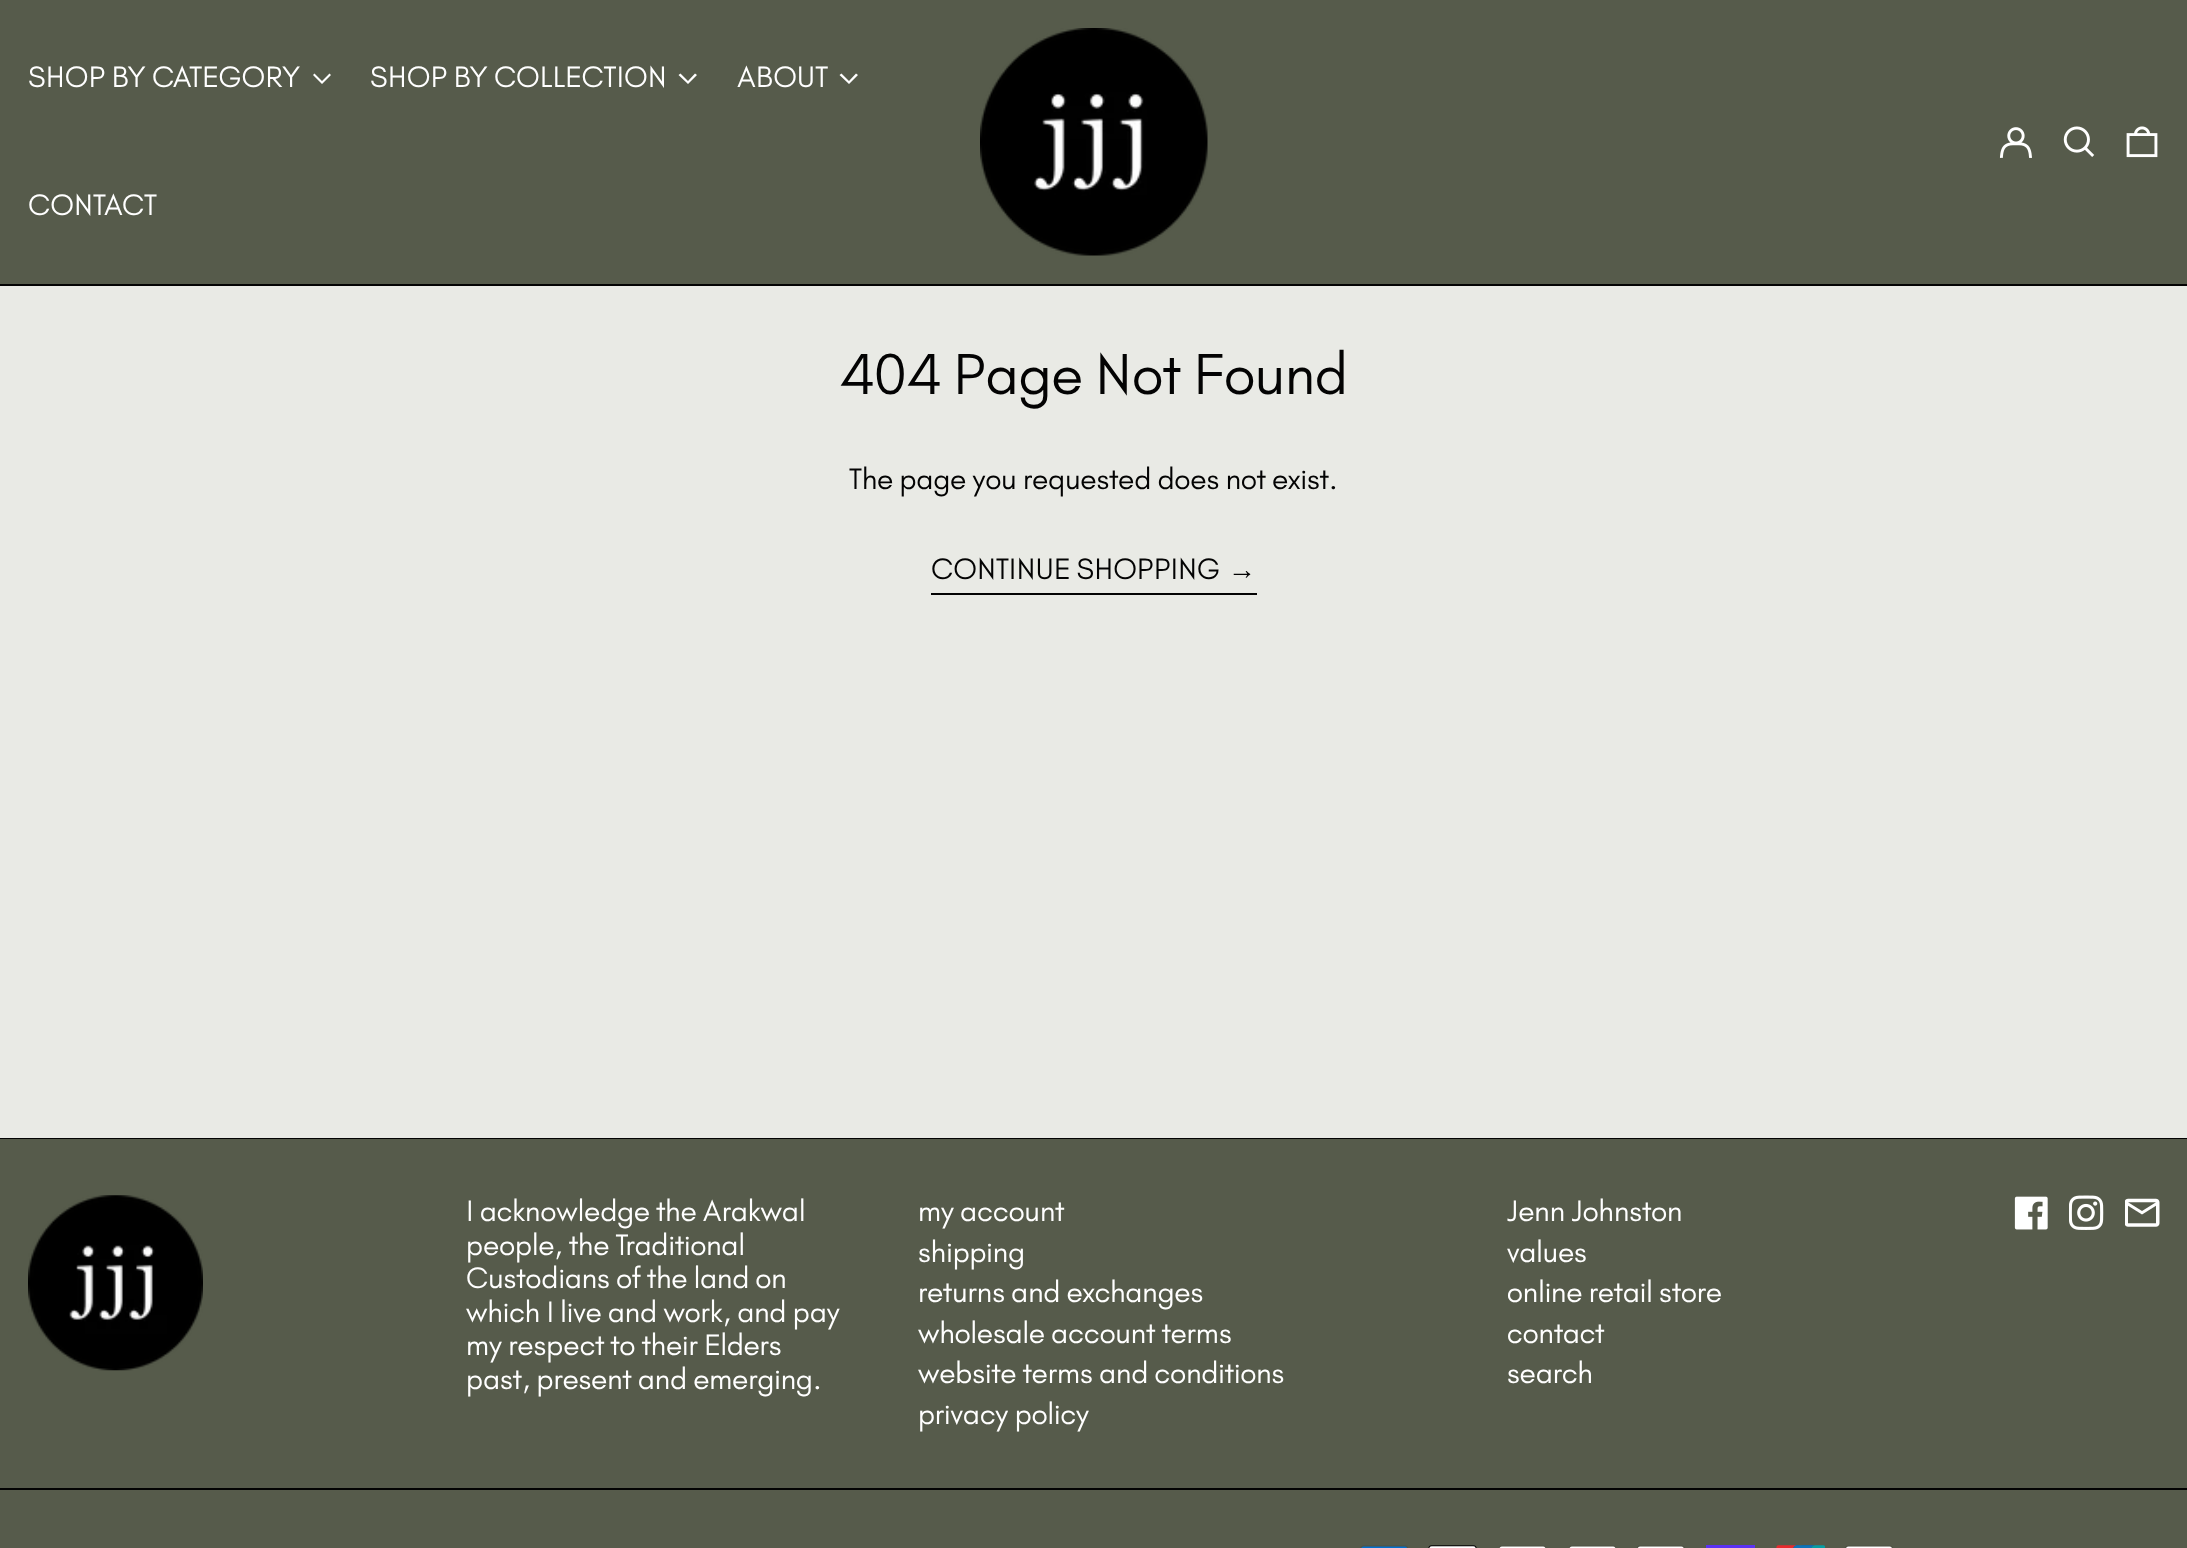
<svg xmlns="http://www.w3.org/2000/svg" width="2187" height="1548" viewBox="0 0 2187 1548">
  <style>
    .t1 { font: 28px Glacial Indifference; fill: #fff; }
    .t2 { font: 54.75px Glacial Indifference; fill: #030303; }
    .t3 { font: 28px Glacial Indifference; fill: #030303; }
    .t4 { font: 28px Liberation Serif; fill: #030303; }
  </style>
  <rect width="100%" height="100%" fill="#e9eae5"/>
  <rect x="0" y="0" width="2187" height="284" fill="#565b4b"/>
  <rect x="0" y="284" width="2187" height="2" fill="#030303"/>
  <text x="28" y="87" class="t1">SHOP BY CATEGORY</text>
  <path d="M322 84L313 75L314.5 73.5L322 81L329.5 73.5L331 75Z" fill="#fff" fill-rule="evenodd"/>
  <text x="370" y="87" class="t1">SHOP BY COLLECTION</text>
  <path d="M688 84L678.5 75L680.5 73.5L688 81L695 73.5L697 75Z" fill="#fff" fill-rule="evenodd"/>
  <text x="737" y="87" class="t1">ABOUT</text>
  <path d="M849 84L839.5 75L841.5 73.5L849 81L856 73.5L858 75Z" fill="#fff" fill-rule="evenodd"/>
  <text x="28" y="215" class="t1">CONTACT</text>
  <image x="980" y="28" width="228" height="228" href="images/1.png"/>
  <image x="1999" y="127" width="33" height="31" href="images/2.png"/>
  <image x="2063" y="126" width="32" height="31" href="images/3.png"/>
  <image x="2126" y="126" width="32" height="32" href="images/4.png"/>
  <text x="840" y="394" class="t2">404 Page Not Found</text>
  <text x="849" y="489" class="t3">The page you requested does not exist.</text>
  <rect x="931" y="593" width="326" height="2" fill="#030303"/>
  <text x="931" y="579" class="t3">CONTINUE SHOPPING</text>
  <text x="1228" y="579" class="t4">→</text>
  <rect x="0" y="1490" width="2187" height="58" fill="#565b4b"/>
  <rect x="0" y="1138" width="2187" height="1" fill="#030303"/>
  <rect x="0" y="1139" width="438" height="349" fill="#565b4b"/>
  <image x="28" y="1195" width="175" height="176" href="images/5.png"/>
  <rect x="438" y="1139" width="1749" height="349" fill="#565b4b"/>
  <text x="466" y="1221" class="t1">I acknowledge the Arakwal</text>
  <text x="466" y="1255" class="t1">people, the Traditional</text>
  <text x="466" y="1288" class="t1">Custodians of the land on</text>
  <text x="466" y="1322" class="t1">which I live and work, and pay</text>
  <text x="466" y="1355" class="t1">my respect to their Elders</text>
  <text x="466" y="1389" class="t1">past, present and emerging.</text>
  <text x="918" y="1221" class="t1">my account</text>
  <text x="918" y="1262" class="t1">shipping</text>
  <text x="918" y="1302" class="t1">returns and exchanges</text>
  <text x="918" y="1343" class="t1">wholesale account terms</text>
  <text x="918" y="1383" class="t1">website terms and conditions</text>
  <text x="918" y="1424" class="t1">privacy policy</text>
  <text x="1507" y="1221" class="t1">Jenn Johnston</text>
  <text x="1507" y="1262" class="t1">values</text>
  <text x="1507" y="1302" class="t1">online retail store</text>
  <text x="1507" y="1343" class="t1">contact</text>
  <text x="1507" y="1383" class="t1">search</text>
  <image x="2014" y="1196" width="34" height="34" href="images/6.png"/>
  <image x="2069" y="1195" width="35" height="35" href="images/7.png"/>
  <image x="2125" y="1198" width="35" height="29" href="images/8.png"/>
  <rect x="0" y="1488" width="2187" height="2" fill="#030303"/>
  <image x="1360" y="1545" width="48" height="3" href="images/9.png"/>
  <image x="1428" y="1545" width="49" height="3" href="images/10.png"/>
  <image x="1499" y="1545" width="47" height="3" href="images/11.png"/>
  <image x="1569" y="1545" width="47" height="3" href="images/11.png"/>
  <image x="1637" y="1545" width="48" height="3" href="images/12.png"/>
  <rect x="1706" y="1545" width="49" height="3" fill="#5a31f4"/>
  <image x="1776" y="1545" width="49" height="3" href="images/13.png"/>
  <image x="1845" y="1545" width="48" height="3" href="images/14.png"/>
</svg>
